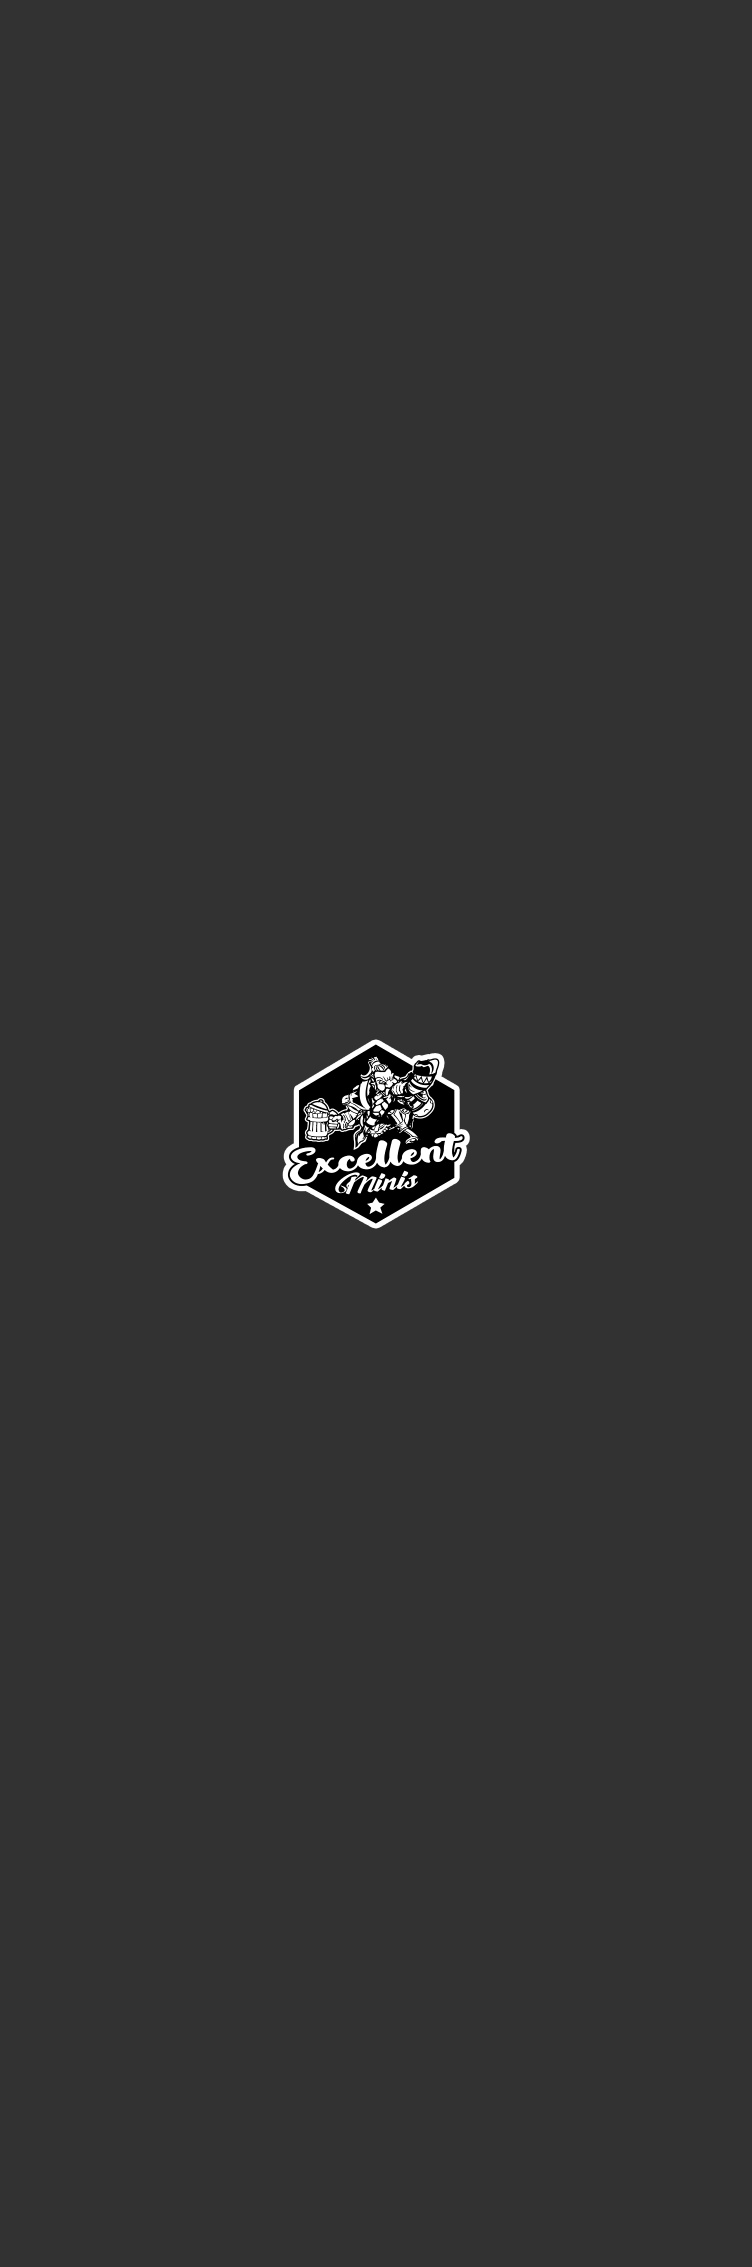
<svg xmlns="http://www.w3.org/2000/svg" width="752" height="2267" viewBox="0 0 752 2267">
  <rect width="100%" height="100%" fill="#323232"/>
  <image x="282" y="1039" width="188" height="190" href="images/1.png"/>
</svg>
